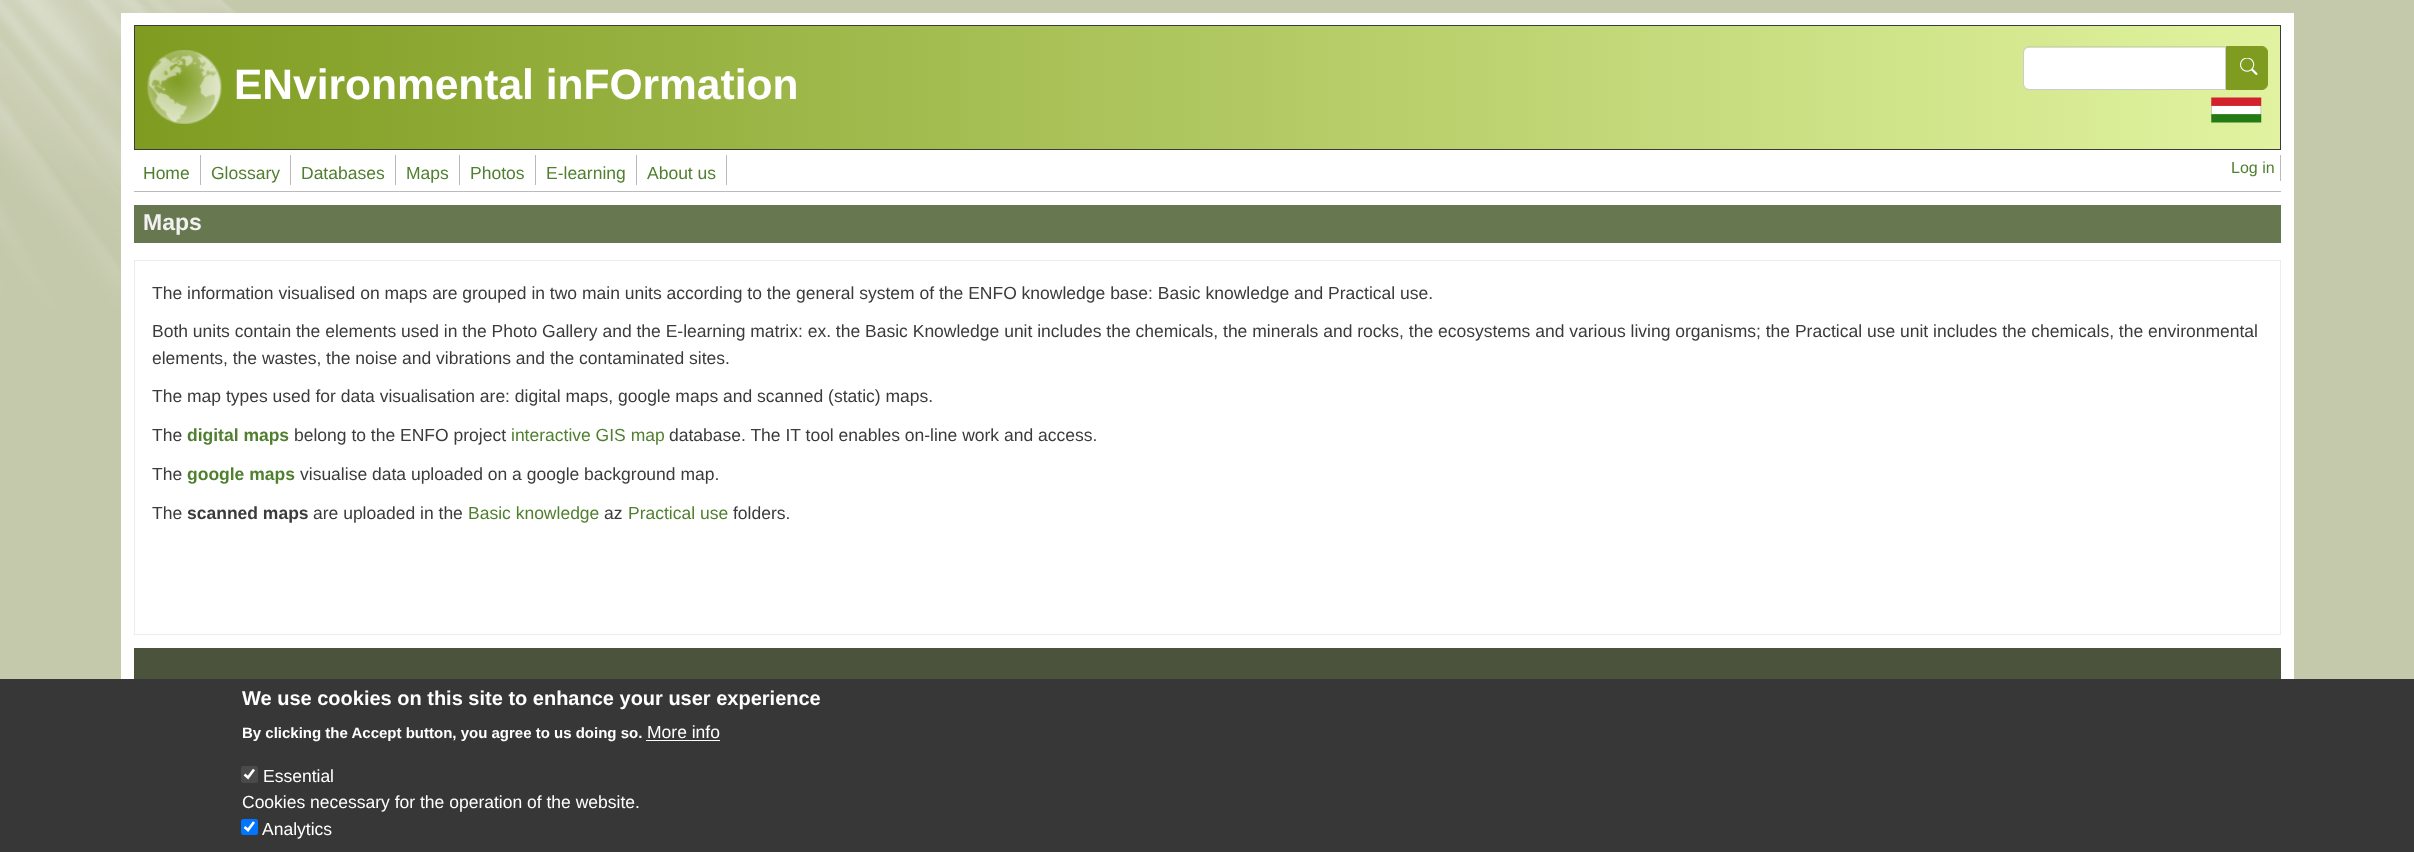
<svg xmlns="http://www.w3.org/2000/svg" width="2414" height="852" viewBox="0 0 2414 852">
  <style>
    .t1 { font: bold 42.5px Liberation Sans; fill: #fff; }
    .t2 { font: 17.5px Liberation Sans; fill: #507f2f; }
    .t3 { font: 16px Liberation Sans; fill: #507f2f; }
    .t4 { font: bold 23px Liberation Sans; fill: #f1f1f1; }
    .t5 { font: 17.5px Liberation Sans; fill: #3b3b3b; }
    .t6 { font: bold 17.5px Liberation Sans; fill: #507f2f; }
    .t7 { font: bold 17.5px Liberation Sans; fill: #3b3b3b; }
    .t8 { font: bold 20px Liberation Sans; fill: #fff; }
    .t9 { font: bold 15px Liberation Sans; fill: #fff; }
    .t10 { font: 17.5px Liberation Sans; fill: #fff; }
  </style>
  <defs>
    <linearGradient id="g1" gradientUnits="userSpaceOnUse" x1="135" y1="88" x2="2280" y2="87"><stop offset="0" stop-color="#7f9c21"/><stop offset="1" stop-color="#e1f3a0"/></linearGradient>
  </defs>
  <rect width="100%" height="100%" fill="#c5c9ab"/>
  <image x="0" y="0" width="237" height="309" href="images/1.png"/>
  <rect x="121" y="13" width="2173" height="666" fill="#fff"/>
  <rect x="135" y="26" width="2145" height="123" fill="url(#g1)"/>
  <rect x="134.5" y="25.5" width="2146" height="124" fill="none" stroke="#3b3b3b"/>
  <image x="147" y="50" width="75" height="74" href="images/2.png"/>
  <text x="234" y="99" class="t1">ENvironmental inFOrmation</text>
  <path d="M2029 48H2225V89H2029C2026 89 2024 87 2024 84V53C2024 50 2026 48 2029 48Z" fill="#fff"/>
  <path d="M2029 46.5H2225.5V89.5H2029C2026 89.5 2023.5 87 2023.5 84V52C2023.5 49 2026 46.5 2029 46.5Z" fill="none" stroke="#ccc"/>
  <path d="M2226.5 46.5H2262C2265 46.5 2267.5 49 2267.5 52V84C2267.5 87 2265 89.5 2262 89.5H2226.5Z" fill="#7f9c21" stroke="#7f9c21"/>
  <image x="2240" y="58" width="18" height="17" href="images/3.png"/>
  <image x="2211" y="97" width="51" height="26" href="images/4.png"/>
  <rect x="134" y="191" width="2147" height="1" fill="#bababa"/>
  <rect x="200" y="155" width="1" height="30" fill="#bababa"/>
  <text x="143" y="179" class="t2">Home</text>
  <rect x="290" y="155" width="1" height="30" fill="#bababa"/>
  <text x="211" y="179" class="t2">Glossary</text>
  <rect x="395" y="155" width="1" height="30" fill="#bababa"/>
  <text x="301" y="179" class="t2">Databases</text>
  <rect x="459" y="155" width="1" height="30" fill="#bababa"/>
  <text x="406" y="179" class="t2">Maps</text>
  <rect x="535" y="155" width="1" height="30" fill="#bababa"/>
  <text x="470" y="179" class="t2">Photos</text>
  <rect x="636" y="155" width="1" height="30" fill="#bababa"/>
  <text x="546" y="179" class="t2">E-learning</text>
  <rect x="726" y="155" width="1" height="30" fill="#bababa"/>
  <text x="647" y="179" class="t2">About us</text>
  <rect x="2280" y="155" width="1" height="26" fill="#bababa"/>
  <text x="2231" y="173" class="t3">Log in</text>
  <rect x="134" y="205" width="2147" height="38" fill="#677750"/>
  <text x="143" y="230" class="t4">Maps</text>
  <rect x="134.5" y="260.5" width="2146" height="374" fill="none" stroke="#ececec"/>
  <text x="152" y="299" class="t5">The information visualised on maps are grouped in two main units according to the general system of the ENFO knowledge base: Basic knowledge and Practical use.</text>
  <text x="152" y="337" class="t5">Both units contain the elements used in the Photo Gallery and the E-learning matrix: ex. the Basic Knowledge unit includes the chemicals, the minerals and rocks, the ecosystems and various living organisms; the Practical use unit includes the chemicals, the environmental</text>
  <text x="152" y="364" class="t5">elements, the wastes, the noise and vibrations and the contaminated sites.</text>
  <text x="152" y="402" class="t5">The map types used for data visualisation are: digital maps, google maps and scanned (static) maps.</text>
  <text x="152" y="441" class="t5">The</text>
  <text x="187" y="441" class="t6">digital maps</text>
  <text x="294" y="441" class="t5">belong to the ENFO project</text>
  <text x="511" y="441" class="t2">interactive GIS map</text>
  <text x="669" y="441" class="t5">database. The IT tool enables on-line work and access.</text>
  <text x="152" y="480" class="t5">The</text>
  <text x="187" y="480" class="t6">google maps</text>
  <text x="300" y="480" class="t5">visualise data uploaded on a google background map.</text>
  <text x="152" y="519" class="t5">The</text>
  <text x="187" y="519" class="t7">scanned maps</text>
  <text x="313" y="519" class="t5">are uploaded in the</text>
  <text x="468" y="519" class="t2">Basic knowledge</text>
  <text x="604" y="519" class="t5">az</text>
  <text x="628" y="519" class="t2">Practical use</text>
  <text x="733" y="519" class="t5">folders.</text>
  <rect x="134" y="648" width="2147" height="31" fill="#4b533c"/>
  <rect x="0" y="679" width="2414" height="173" fill="#373737"/>
  <text x="242" y="705" class="t8">We use cookies on this site to enhance your user experience</text>
  <text x="242" y="738" class="t9">By clicking the Accept button, you agree to us doing so.</text>
  <text x="647" y="738" class="t10">More info</text>
  <rect x="646" y="740" width="74" height="1" fill="#fff"/>
  <rect x="241" y="766" width="17" height="17" rx="2.5" fill="#4a4a4a"/>
  <path d="M244.5 774.5L248 777.5L254 769.5" fill="none" stroke="#fff" stroke-width="2.6"/>
  <text x="263" y="782" class="t10">Essential</text>
  <text x="242" y="808" class="t10">Cookies necessary for the operation of the website.</text>
  <rect x="241" y="819" width="17" height="16" rx="2.5" fill="#0075ff"/>
  <path d="M244.5 827L248 830L254 822" fill="none" stroke="#fff" stroke-width="2.6"/>
  <text x="262" y="835" class="t10">Analytics</text>
</svg>
